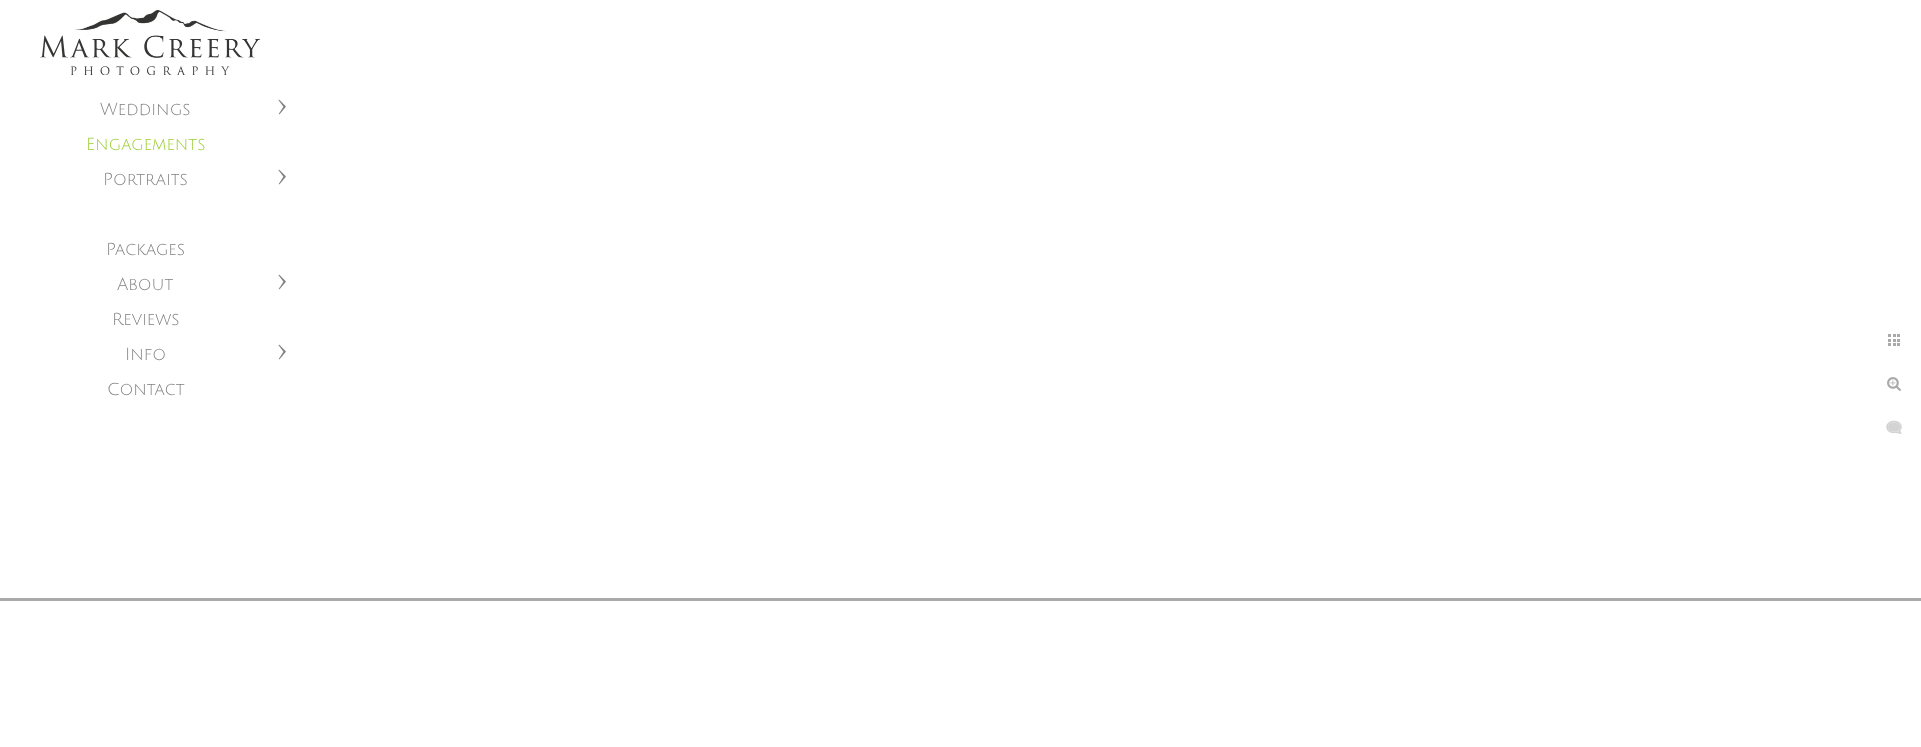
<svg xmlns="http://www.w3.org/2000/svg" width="1921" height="747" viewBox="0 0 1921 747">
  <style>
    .t1 { font: 17px Julius Sans One; fill: #808080; }
    .t2 { font: 17px Julius Sans One; fill: #9acd32; }
  </style>
  <rect width="100%" height="100%" fill="#fff"/>
  <image x="40" y="10" width="220" height="65" href="images/1.png"/>
  <text x="100" y="115" class="t1">Weddings</text>
  <image x="278" y="99" width="8" height="16" href="images/2.png"/>
  <text x="86" y="150" class="t2">Engagements</text>
  <text x="103" y="185" class="t1">Portraits</text>
  <image x="278" y="169" width="8" height="16" href="images/2.png"/>
  <text x="106" y="255" class="t1">Packages</text>
  <text x="117" y="290" class="t1">About</text>
  <image x="278" y="274" width="8" height="16" href="images/2.png"/>
  <text x="112" y="325" class="t1">Reviews</text>
  <text x="125" y="360" class="t1">Info</text>
  <image x="278" y="344" width="8" height="16" href="images/2.png"/>
  <text x="107" y="395" class="t1">Contact</text>
  <image x="1888" y="334" width="12" height="12" href="images/3.png"/>
  <image x="1887" y="377" width="14" height="14" href="images/4.png"/>
  <image x="1886" y="420" width="16" height="14" href="images/5.png"/>
  <rect x="0" y="598" width="1921" height="3" fill="#a9a9a9"/>
</svg>
